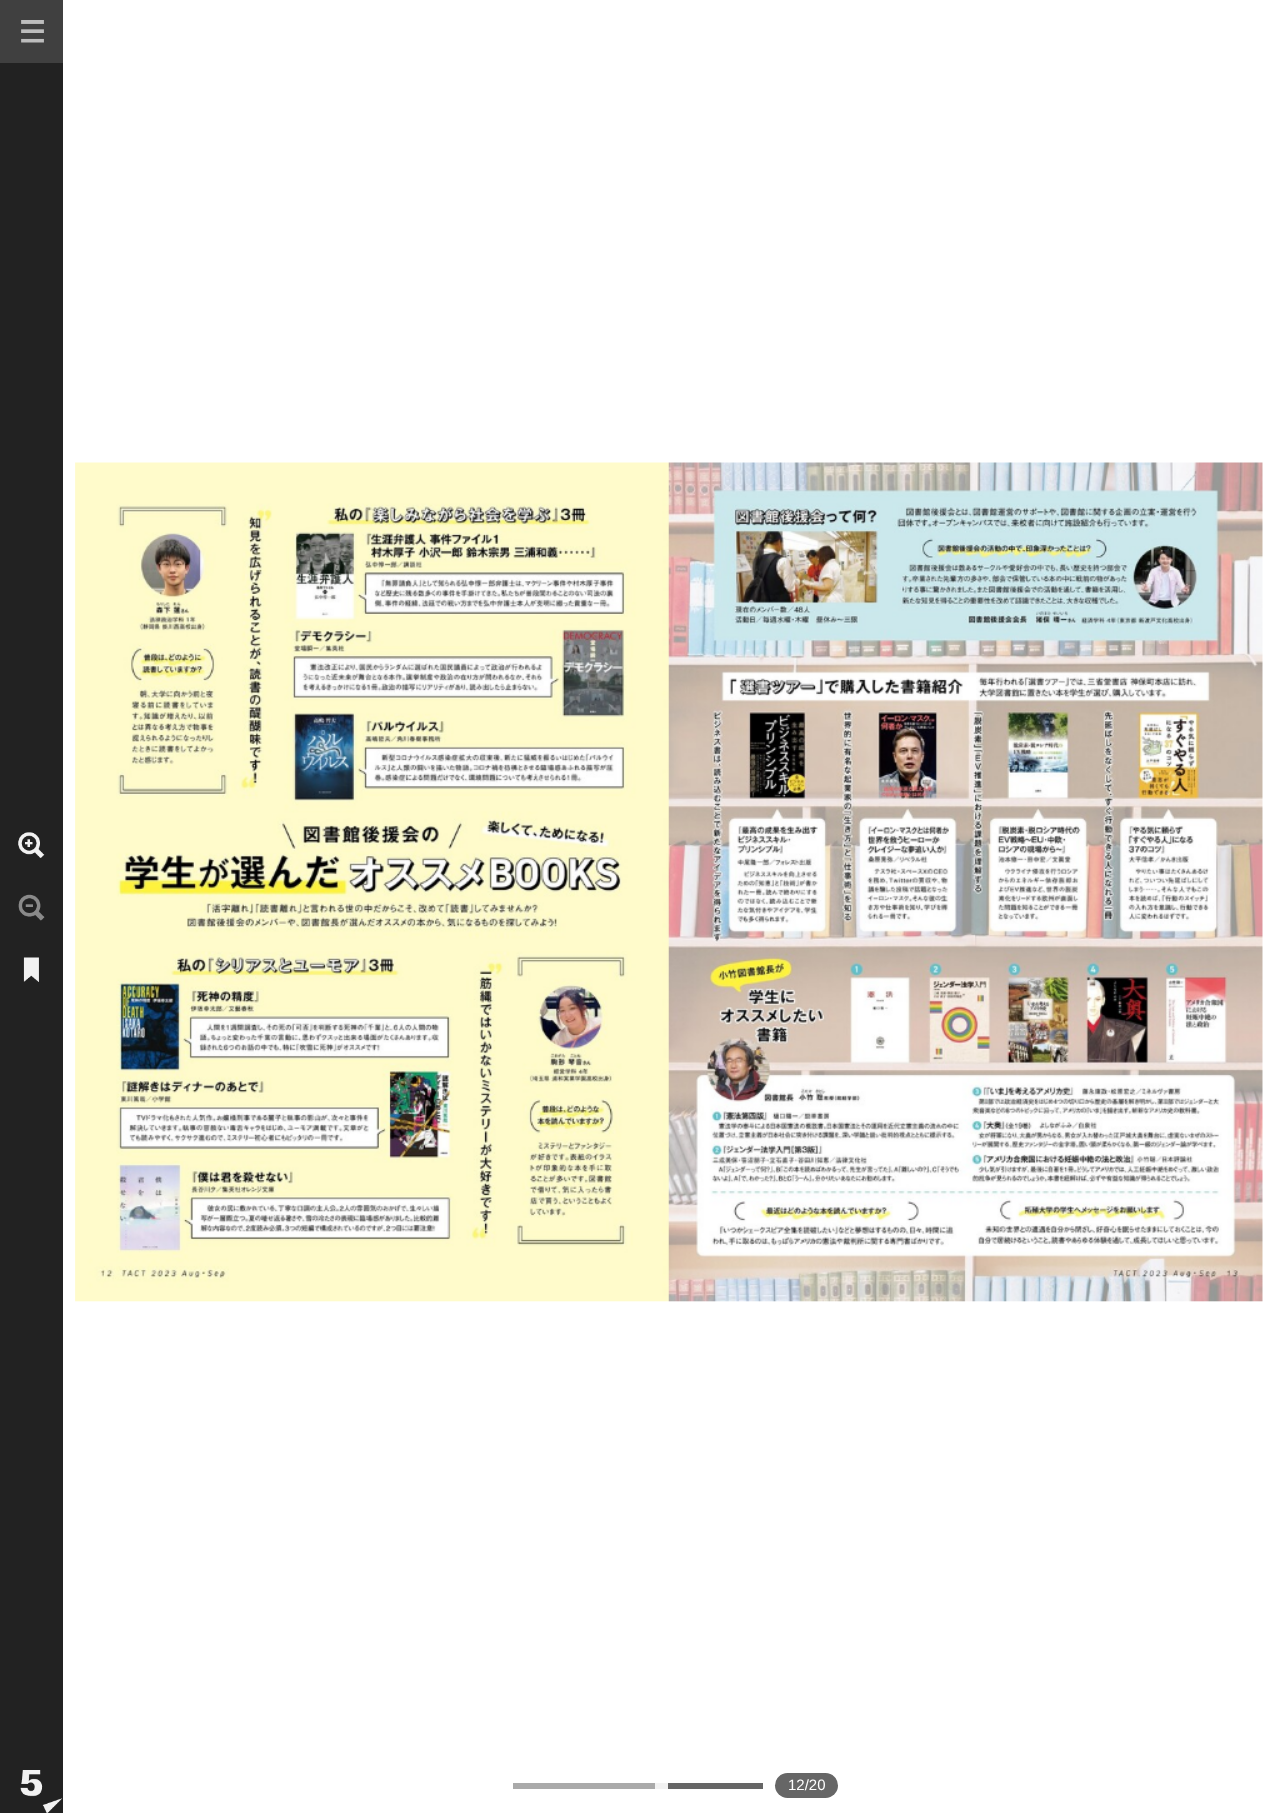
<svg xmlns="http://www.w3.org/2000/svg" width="1274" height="1813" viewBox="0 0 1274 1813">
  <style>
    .t1 { font: 15px Liberation Sans; fill: #fff; }
  </style>
  <rect width="100%" height="100%" fill="#fff"/>
  <rect x="0" y="63" width="63" height="1750" fill="#222"/>
  <rect x="0" y="0" width="63" height="63" fill="#404040"/>
  <image x="21" y="20" width="23" height="23" href="images/1.png"/>
  <image x="18" y="832" width="27" height="26" href="images/2.png"/>
  <image x="18" y="894" width="27" height="27" href="images/3.png"/>
  <image x="23" y="957" width="16" height="25" href="images/4.png"/>
  <image x="20" y="1770" width="43" height="43" href="images/5.png"/>
  <image x="75" y="462" width="1188" height="840" href="images/6.png"/>
  <rect x="668" y="1783" width="95" height="6" fill="#666"/>
  <rect x="513" y="1783" width="142" height="6" fill="#aaa"/>
  <rect x="655" y="1783" width="13" height="6" fill="#f2f2f2"/>
  <rect x="775" y="1773" width="63" height="25" rx="12.5" fill="#666"/>
  <text x="788" y="1790" class="t1">12/20</text>
</svg>
